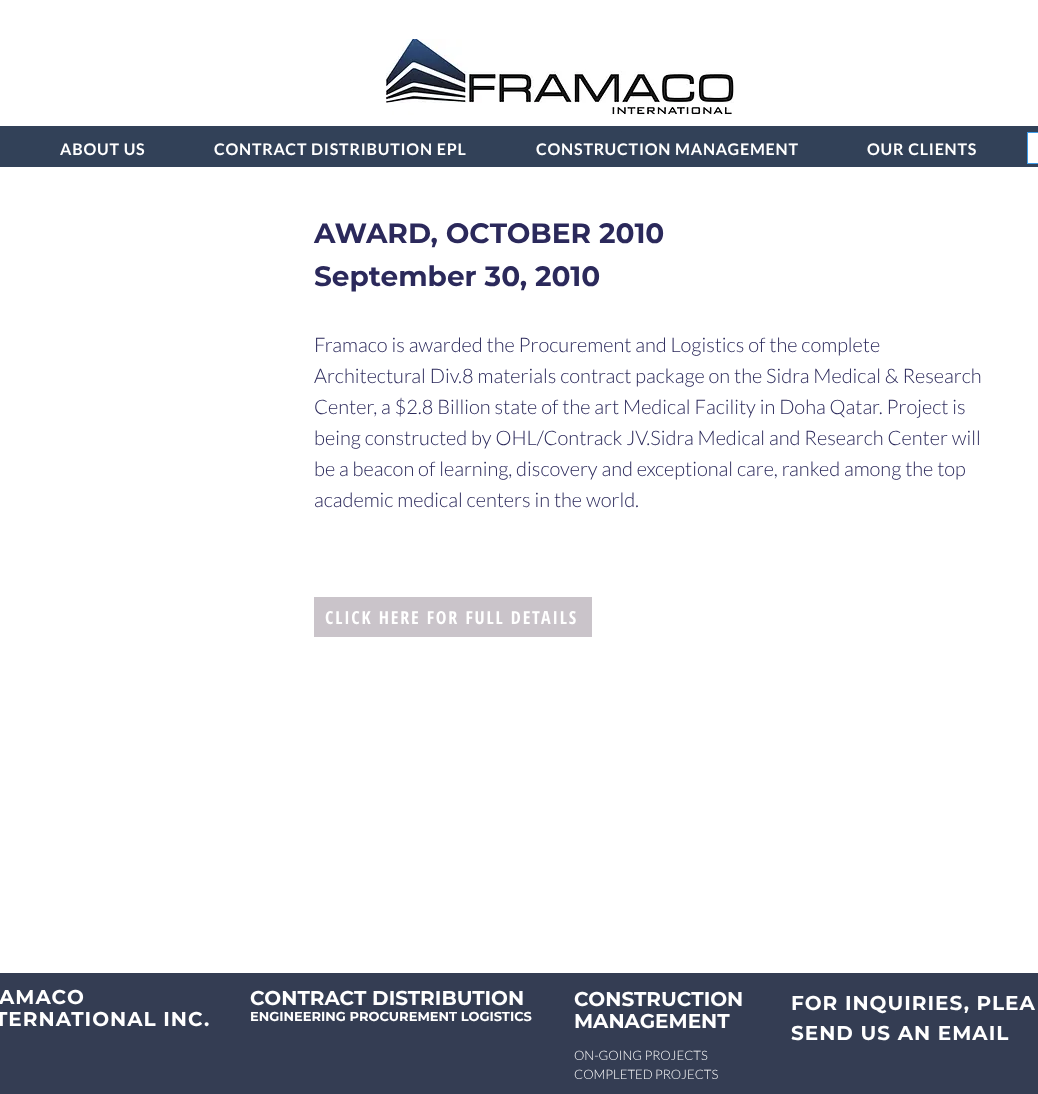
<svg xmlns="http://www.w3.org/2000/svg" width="1038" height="1094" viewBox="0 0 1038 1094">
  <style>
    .t1 { font: bold 16px Lato; letter-spacing: 0.8px; fill: #fff; }
    .t2 { font: bold 28px Montserrat; fill: #2b295b; }
    .t3 { font: 300 20px Lato; fill: #2b295b; }
    .t4 { font: bold 18px Open Sans Condensed; letter-spacing: 1.8px; fill: #fff; }
    .t5 { font: bold 20px Montserrat; letter-spacing: 1px; fill: #fff; }
    .t6 { font: bold 20px Montserrat; fill: #fff; }
    .t7 { font: bold 13px Montserrat; fill: #fff; }
    .t8 { font: 300 13px Lato; fill: #fff; }
  </style>
  <rect width="100%" height="100%" fill="#fff"/>
  <image x="386" y="39" width="348" height="76" href="images/1.png"/>
  <rect x="0" y="126" width="1038" height="41" fill="#324158"/>
  <text x="60" y="155" class="t1">ABOUT US</text>
  <text x="214" y="155" class="t1">CONTRACT DISTRIBUTION EPL</text>
  <text x="536" y="155" class="t1">CONSTRUCTION MANAGEMENT</text>
  <text x="867" y="155" class="t1">OUR CLIENTS</text>
  <rect x="1027.5" y="132.5" width="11" height="31" fill="none" stroke="#3d9be9"/>
  <rect x="1028" y="133" width="10" height="30" fill="#fff"/>
  <text x="314" y="243" class="t2">AWARD, OCTOBER 2010</text>
  <text x="314" y="286" class="t2">September 30, 2010</text>
  <text x="314" y="352" class="t3">Framaco is awarded the Procurement and Logistics of the complete</text>
  <text x="314" y="383" class="t3">Architectural Div.8 materials contract package on the Sidra Medical &amp; Research</text>
  <text x="314" y="414" class="t3">Center, a $2.8 Billion state of the art Medical Facility in Doha Qatar. Project is</text>
  <text x="314" y="445" class="t3">being constructed by OHL/Contrack JV.Sidra Medical and Research Center will</text>
  <text x="314" y="476" class="t3">be a beacon of learning, discovery and exceptional care, ranked among the top</text>
  <text x="314" y="507" class="t3">academic medical centers in the world.</text>
  <rect x="314" y="597" width="278" height="40" fill="#cac4ca"/>
  <text x="325" y="624" class="t4">CLICK HERE FOR FULL DETAILS</text>
  <rect x="0" y="973" width="1038" height="121" fill="#343d53"/>
  <text x="-1" y="1004" class="t5">AMACO</text>
  <text x="-5" y="1026" class="t5">TERNATIONAL INC.</text>
  <text x="250" y="1005" class="t6">CONTRACT DISTRIBUTION</text>
  <text x="250" y="1021" class="t7">ENGINEERING PROCUREMENT LOGISTICS</text>
  <text x="574" y="1006" class="t6">CONSTRUCTION</text>
  <text x="574" y="1028" class="t6">MANAGEMENT</text>
  <text x="574" y="1060" class="t8">ON-GOING PROJECTS</text>
  <text x="574" y="1079" class="t8">COMPLETED PROJECTS</text>
  <text x="791" y="1010" class="t5">FOR INQUIRIES, PLEA</text>
  <text x="791" y="1040" class="t5">SEND US AN EMAIL</text>
</svg>
